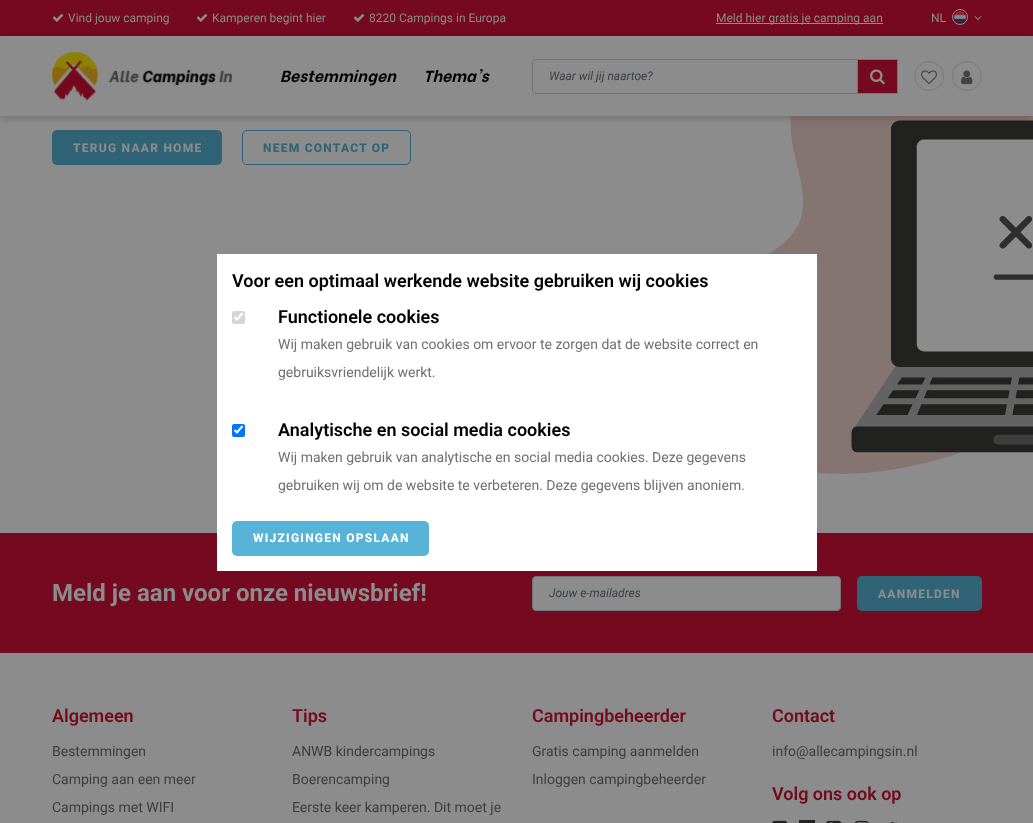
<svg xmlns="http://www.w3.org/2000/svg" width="1033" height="823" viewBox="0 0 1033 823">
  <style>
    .t1 { font: 12px Roboto; fill: #8c8c8c; }
    .t2 { font: italic bold 16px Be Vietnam; fill: #010101; }
    .t3 { font: italic 12px Roboto; fill: #3b4045; }
    .t4 { font: 800 12px Roboto; letter-spacing: 1.25px; fill: #8c8c8c; }
    .t5 { font: 800 12px Roboto; letter-spacing: 1.25px; fill: #306376; }
    .t6 { font: 600 18px Roboto; fill: #010101; }
    .t7 { font: 14px Roboto; fill: #707070; }
    .t8 { font: 800 12px Roboto; letter-spacing: 1.25px; fill: #fff; }
    .t9 { font: bold 24px Roboto; fill: #8c8c8c; }
    .t10 { font: 600 18px Roboto; fill: #74091f; }
    .t11 { font: 14px Roboto; fill: #3e3e3e; }
  </style>
  <rect width="100%" height="100%" fill="#8c8c8c"/>
  <rect x="0" y="0" width="1033" height="36" fill="#74091f"/>
  <image x="52" y="14" width="12" height="8" href="images/1.png"/>
  <text x="68" y="22" class="t1">Vind jouw camping</text>
  <image x="196" y="14" width="12" height="8" href="images/1.png"/>
  <text x="212" y="22" class="t1">Kamperen begint hier</text>
  <image x="353" y="14" width="12" height="8" href="images/1.png"/>
  <text x="369" y="22" class="t1">8220 Campings in Europa</text>
  <rect x="716" y="23" width="167" height="1" fill="#8c8c8c"/>
  <text x="716" y="22" class="t1">Meld hier gratis je camping aan</text>
  <circle cx="960" cy="17" r="7.5" fill="none" stroke="#8c8c8c"/>
  <text x="931" y="22" class="t1">NL</text>
  <image x="954" y="11" width="12" height="12" href="images/2.png"/>
  <image x="974" y="16" width="8" height="4" href="images/3.png"/>
  <image x="692" y="116" width="341" height="358" href="images/8.png"/>
  <rect x="0" y="39" width="1033" height="80" fill="#00000029" filter="blur(3px)"/>
  <rect x="0" y="36" width="1033" height="80" fill="#8c8c8c"/>
  <image x="52" y="52" width="180" height="49" href="images/4.png"/>
  <text x="280" y="82" class="t2">Bestemmingen</text>
  <text x="423" y="82" class="t2">Thema's</text>
  <rect x="857.5" y="59.5" width="40" height="34" fill="#74091f" stroke="#717578"/>
  <path d="M536 59.5H857.5V93.5H536C534 93.5 532.5 92 532.5 90V63C532.5 61 534 59.5 536 59.5Z" fill="none" stroke="#717578"/>
  <text x="549" y="80" class="t3">Waar wil jij naartoe?</text>
  <image x="870" y="69" width="15" height="16" href="images/5.png"/>
  <circle cx="929" cy="76" r="14.5" fill="none" stroke="#7a7a7a"/>
  <image x="921" y="70" width="16" height="14" href="images/6.png"/>
  <circle cx="967" cy="76" r="14.5" fill="none" stroke="#7a7a7a"/>
  <image x="961" y="70" width="12" height="15" href="images/7.png"/>
  <rect x="52" y="130" width="170" height="35" rx="5" fill="#306376"/>
  <text x="73" y="152" class="t4">TERUG NAAR HOME</text>
  <rect x="242.5" y="130.5" width="168" height="34" rx="4.5" fill="none" stroke="#306376"/>
  <text x="263" y="152" class="t5">NEEM CONTACT OP</text>
  <rect x="0" y="533" width="1033" height="120" fill="#74091f"/>
  <rect x="217" y="254" width="600" height="317" fill="#fff"/>
  <text x="232" y="287" class="t6">Voor een optimaal werkende website gebruiken wij cookies</text>
  <rect x="232" y="311" width="13" height="13" rx="2" fill="#d6d6d6"/>
  <path d="M234.5 317L237 319.5L242.5 313" fill="none" stroke="#fff" stroke-width="2.1"/>
  <text x="278" y="323" class="t6">Functionele cookies</text>
  <text x="278" y="349" class="t7">Wij maken gebruik van cookies om ervoor te zorgen dat de website correct en</text>
  <text x="278" y="377" class="t7">gebruiksvriendelijk werkt.</text>
  <rect x="232" y="424" width="13" height="13" rx="2" fill="#0075ff"/>
  <path d="M234.5 430L237 432.5L242.5 426" fill="none" stroke="#fff" stroke-width="2.1"/>
  <text x="278" y="436" class="t6">Analytische en social media cookies</text>
  <text x="278" y="462" class="t7">Wij maken gebruik van analytische en social media cookies. Deze gegevens</text>
  <text x="278" y="490" class="t7">gebruiken wij om de website te verbeteren. Deze gegevens blijven anoniem.</text>
  <rect x="232" y="521" width="197" height="35" rx="5" fill="#57b4d6"/>
  <text x="253" y="542" class="t8">WIJZIGINGEN OPSLAAN</text>
  <text x="52" y="601" class="t9">Meld je aan voor onze nieuwsbrief!</text>
  <rect x="532.5" y="576.5" width="308" height="34" rx="3.5" fill="#8c8c8c" stroke="#717578"/>
  <text x="549" y="597" class="t3">Jouw e-mailadres</text>
  <rect x="857" y="576" width="125" height="35" rx="5" fill="#306376"/>
  <text x="878" y="598" class="t4">AANMELDEN</text>
  <text x="52" y="722" class="t10">Algemeen</text>
  <text x="52" y="756" class="t11">Bestemmingen</text>
  <text x="52" y="784" class="t11">Camping aan een meer</text>
  <text x="52" y="812" class="t11">Campings met WIFI</text>
  <text x="292" y="722" class="t10">Tips</text>
  <text x="292" y="756" class="t11">ANWB kindercampings</text>
  <text x="292" y="784" class="t11">Boerencamping</text>
  <text x="292" y="812" class="t11">Eerste keer kamperen. Dit moet je</text>
  <text x="532" y="722" class="t10">Campingbeheerder</text>
  <text x="532" y="756" class="t11">Gratis camping aanmelden</text>
  <text x="532" y="784" class="t11">Inloggen campingbeheerder</text>
  <text x="772" y="722" class="t10">Contact</text>
  <text x="772" y="756" class="t11">info@allecampingsin.nl</text>
  <text x="772" y="800" class="t10">Volg ons ook op</text>
  <image x="772" y="820" width="16" height="3" href="images/9.png"/>
  <rect x="799" y="820" width="16" height="3" fill="#222"/>
  <image x="826" y="820" width="16" height="3" href="images/10.png"/>
  <image x="854" y="820" width="15" height="3" href="images/11.png"/>
  <image x="882" y="822" width="15" height="1" href="images/12.png"/>
</svg>
